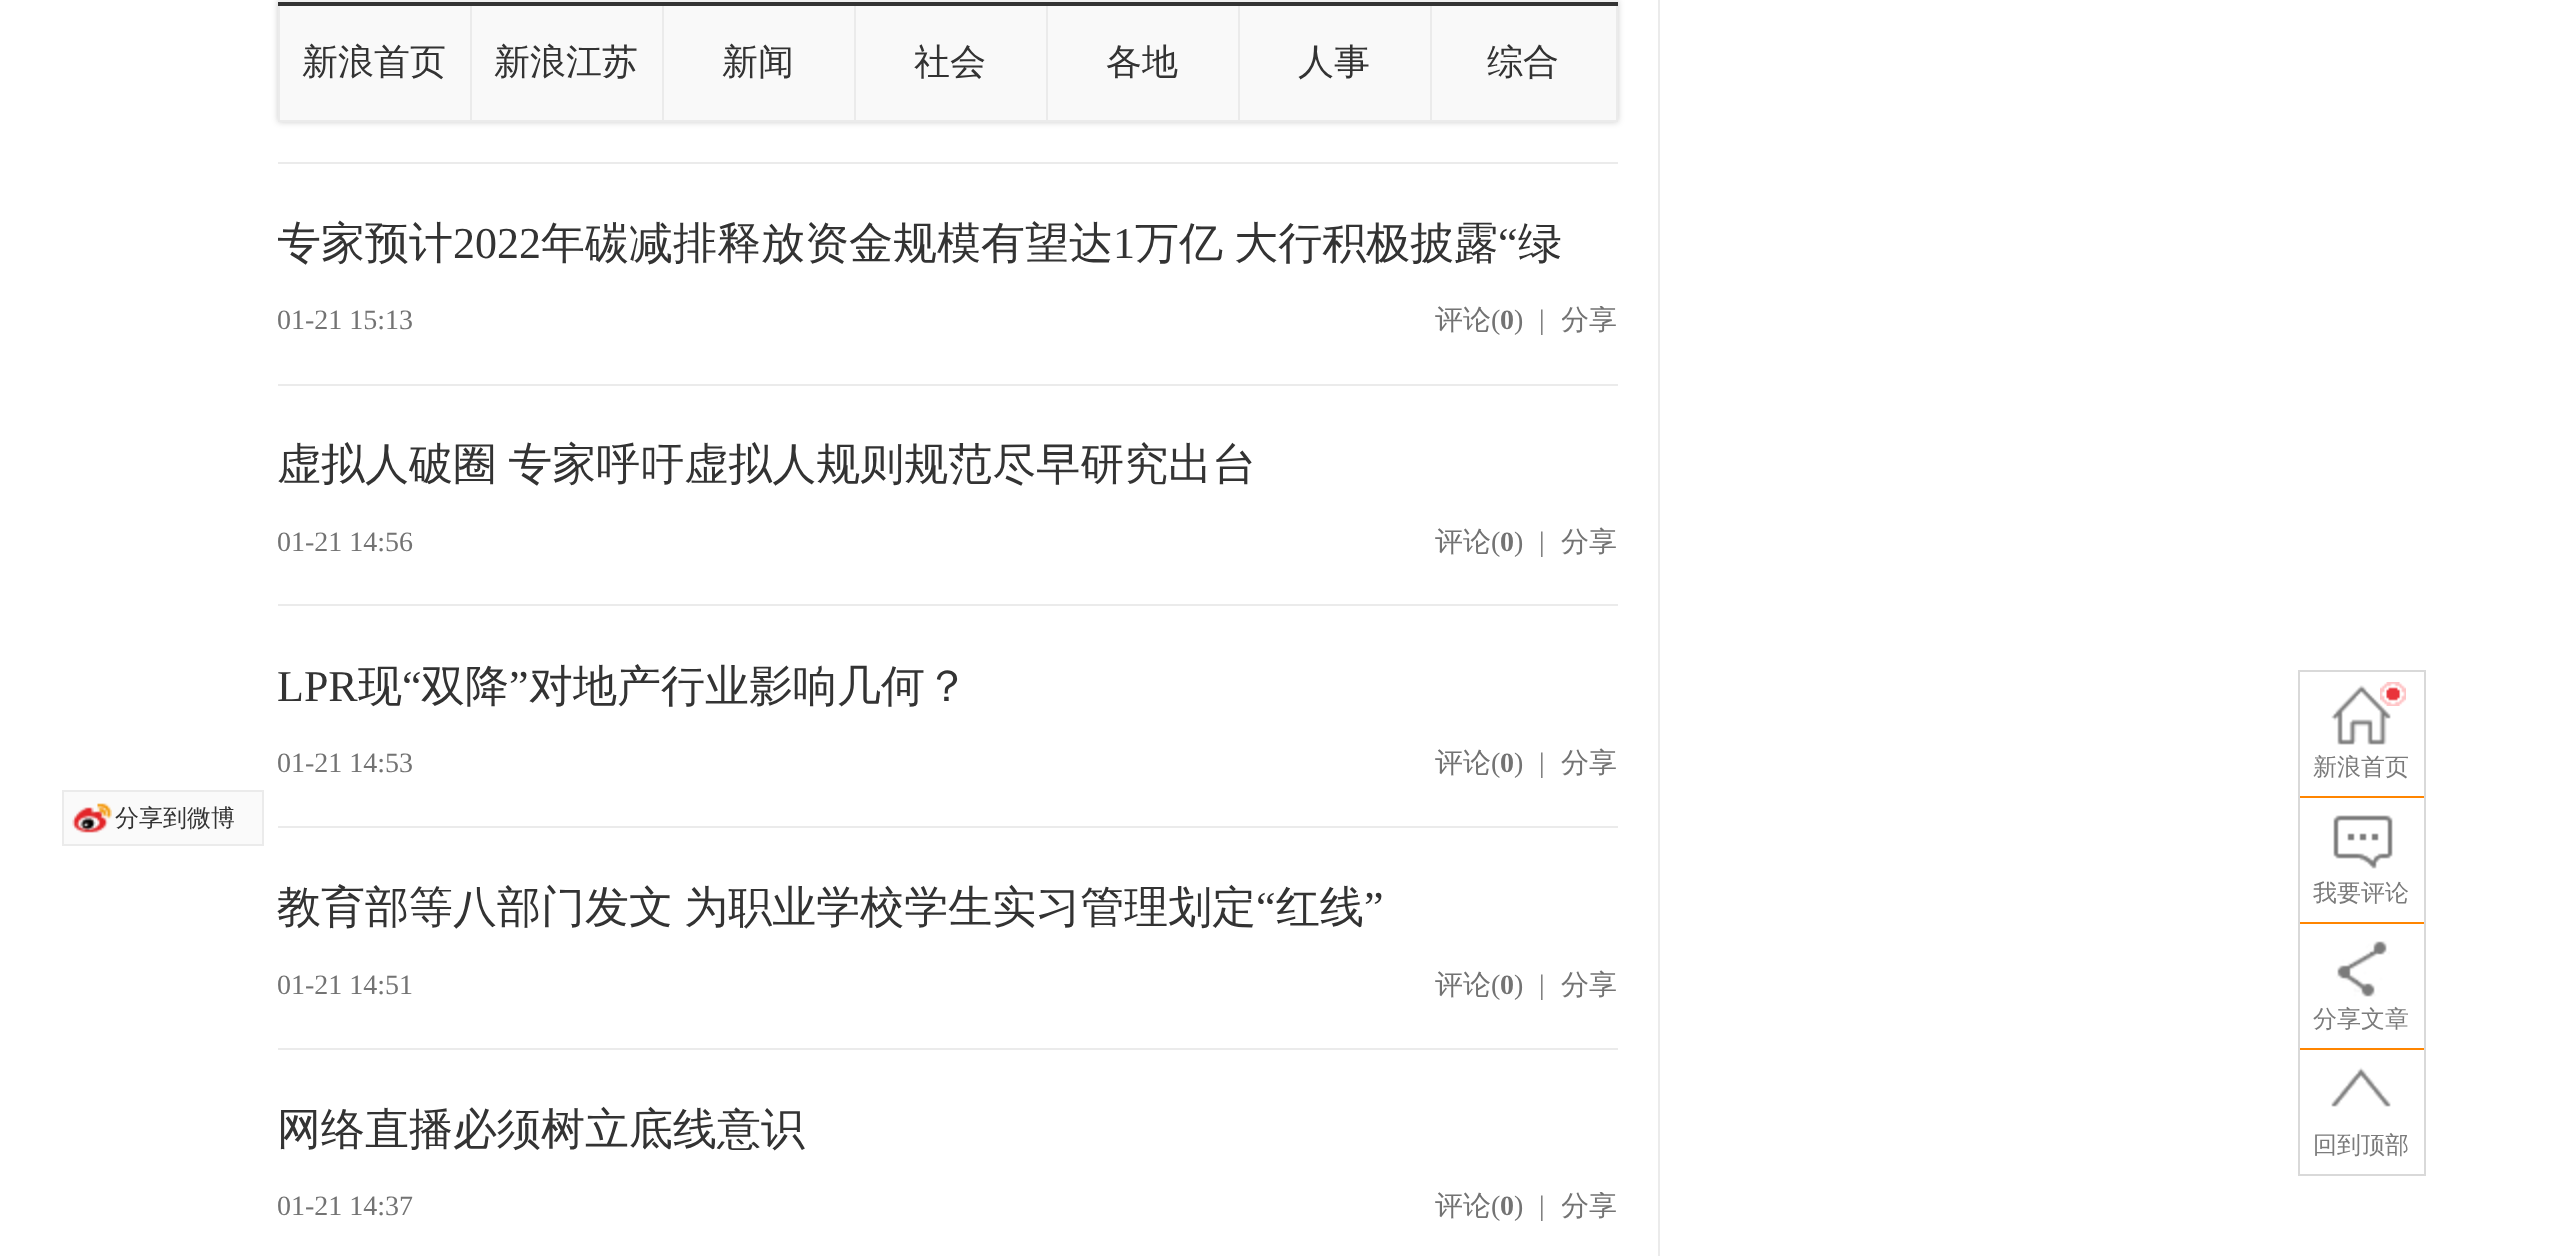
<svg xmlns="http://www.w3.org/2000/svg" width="2553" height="1256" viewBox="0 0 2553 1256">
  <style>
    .t1 { font: 500 24px WenQuanYi Zen Hei; fill: #333; }
    .t2 { font: 500 36px WenQuanYi Zen Hei; fill: #333; }
    .t3 { font: 500 44px WenQuanYi Zen Hei; fill: #333; }
    .t4 { font: 44px Liberation Serif; fill: #333; }
    .t5 { font: 28px Liberation Serif; fill: #737373; }
    .t6 { font: 500 28px WenQuanYi Zen Hei; fill: #737373; }
    .t7 { font: bold 28px Liberation Serif; fill: #737373; }
    .t8 { font: 500 24px WenQuanYi Zen Hei; fill: #7b7b7b; }
  </style>
  <defs>
    <clipPath id="clip1"><rect x="278" y="164" width="1340" height="220"/></clipPath>
    <clipPath id="clip2"><rect x="1562" y="306" width="56" height="48"/></clipPath>
    <clipPath id="clip3"><rect x="1562" y="1192" width="56" height="48"/></clipPath>
  </defs>
  <rect width="100%" height="100%" fill="#fff"/>
  <rect x="64" y="792" width="198" height="52" fill="#fafafa"/>
  <image x="72" y="803" width="40" height="30" href="images/1.png"/>
  <rect x="63" y="791" width="200" height="54" fill="none" stroke="#ebebeb" stroke-width="2"/>
  <text x="115" y="826" class="t1">分享到微博</text>
  <rect x="1658" y="0" width="2" height="1256" fill="#ebebeb"/>
  <rect x="278" y="0" width="1340" height="122" fill="#00000033" filter="blur(3px)"/>
  <rect x="280" y="6" width="1336" height="114" fill="#f9f9f9"/>
  <rect x="278" y="0" width="1340" height="2" fill="#f1f1f1"/>
  <rect x="278" y="2" width="1340" height="4" fill="#333"/>
  <rect x="278" y="120" width="1152" height="2" fill="#ebebeb"/>
  <rect x="278" y="6" width="2" height="116" fill="#ebebeb"/>
  <text x="302" y="74" class="t2">新浪首页</text>
  <rect x="470" y="6" width="2" height="116" fill="#ebebeb"/>
  <text x="494" y="74" class="t2">新浪江苏</text>
  <rect x="662" y="6" width="2" height="116" fill="#ebebeb"/>
  <text x="722" y="74" class="t2">新闻</text>
  <rect x="854" y="6" width="2" height="116" fill="#ebebeb"/>
  <text x="914" y="74" class="t2">社会</text>
  <rect x="1046" y="6" width="2" height="116" fill="#ebebeb"/>
  <text x="1106" y="74" class="t2">各地</text>
  <rect x="1238" y="6" width="2" height="116" fill="#ebebeb"/>
  <text x="1298" y="74" class="t2">人事</text>
  <rect x="1616" y="6" width="2" height="116" fill="#ebebeb"/>
  <rect x="1430" y="120" width="188" height="2" fill="#ebebeb"/>
  <rect x="1430" y="6" width="2" height="116" fill="#ebebeb"/>
  <text x="1487" y="74" class="t2">综合</text>
  <rect x="278" y="162" width="1340" height="2" fill="#ebebeb"/>
  <rect x="278" y="384" width="1340" height="2" fill="#ebebeb"/>
  <g clip-path="url(#clip1)">
    <text x="277" y="258" class="t3">专家预计</text>
  </g>
  <text x="453" y="258" class="t4">2022</text>
  <text x="541" y="258" class="t3">年碳减排释放资金规模有望达</text>
  <text x="1113" y="258" class="t4">1</text>
  <text x="1135" y="258" word-spacing="-2" class="t3">万亿 大行积极披露</text>
  <text x="1498" y="258" class="t4">“</text>
  <text x="1518" y="258" class="t3">绿</text>
  <text x="277" y="329" class="t5">01-21 15:13</text>
  <text x="1435" y="329" class="t6">评论</text>
  <text x="1491" y="329" class="t5">(</text>
  <text x="1500" y="329" class="t7">0</text>
  <text x="1514" y="329" class="t5">)</text>
  <text x="1539" y="329" class="t5">|</text>
  <g clip-path="url(#clip2)">
    <text x="1561" y="329" class="t6">分享</text>
  </g>
  <rect x="278" y="604" width="1340" height="2" fill="#ebebeb"/>
  <text x="277" y="479" word-spacing="-2" class="t3">虚拟人破圈 专家呼吁虚拟人规则规范尽早研究出台</text>
  <text x="277" y="551" class="t5">01-21 14:56</text>
  <text x="1435" y="551" class="t6">评论</text>
  <text x="1491" y="551" class="t5">(</text>
  <text x="1500" y="551" class="t7">0</text>
  <text x="1514" y="551" class="t5">)</text>
  <text x="1539" y="551" class="t5">|</text>
  <text x="1561" y="551" class="t6">分享</text>
  <rect x="278" y="826" width="1340" height="2" fill="#ebebeb"/>
  <text x="277" y="701" class="t4">LPR</text>
  <text x="358" y="701" class="t3">现</text>
  <text x="402" y="701" class="t4">“</text>
  <text x="421" y="701" class="t3">双降</text>
  <text x="509" y="701" class="t4">”</text>
  <text x="529" y="701" class="t3">对地产行业影响几何？</text>
  <text x="277" y="772" class="t5">01-21 14:53</text>
  <text x="1435" y="772" class="t6">评论</text>
  <text x="1491" y="772" class="t5">(</text>
  <text x="1500" y="772" class="t7">0</text>
  <text x="1514" y="772" class="t5">)</text>
  <text x="1539" y="772" class="t5">|</text>
  <text x="1561" y="772" class="t6">分享</text>
  <rect x="278" y="1048" width="1340" height="2" fill="#ebebeb"/>
  <text x="277" y="922" word-spacing="-2" class="t3">教育部等八部门发文 为职业学校学生实习管理划定</text>
  <text x="1256" y="922" class="t4">“</text>
  <text x="1276" y="922" class="t3">红线</text>
  <text x="1364" y="922" class="t4">”</text>
  <text x="277" y="994" class="t5">01-21 14:51</text>
  <text x="1435" y="994" class="t6">评论</text>
  <text x="1491" y="994" class="t5">(</text>
  <text x="1500" y="994" class="t7">0</text>
  <text x="1514" y="994" class="t5">)</text>
  <text x="1539" y="994" class="t5">|</text>
  <text x="1561" y="994" class="t6">分享</text>
  <text x="277" y="1144" class="t3">网络直播必须树立底线意识</text>
  <text x="277" y="1215" class="t5">01-21 14:37</text>
  <text x="1435" y="1215" class="t6">评论</text>
  <text x="1491" y="1215" class="t5">(</text>
  <text x="1500" y="1215" class="t7">0</text>
  <text x="1514" y="1215" class="t5">)</text>
  <text x="1539" y="1215" class="t5">|</text>
  <g clip-path="url(#clip3)">
    <text x="1561" y="1215" class="t6">分享</text>
  </g>
  <rect x="2299" y="671" width="126" height="504" fill="none" stroke="#d9d9d9" stroke-width="2"/>
  <image x="2331" y="685" width="60" height="60" href="images/2.png"/>
  <rect x="2300" y="796" width="124" height="2" fill="#ff8500"/>
  <image x="2380" y="682" width="26" height="24" href="images/3.png"/>
  <text x="2313" y="775" class="t8">新浪首页</text>
  <image x="2333" y="815" width="60" height="54" href="images/4.png"/>
  <rect x="2300" y="922" width="124" height="2" fill="#ff8500"/>
  <text x="2313" y="901" class="t8">我要评论</text>
  <image x="2336" y="941" width="54" height="56" href="images/5.png"/>
  <rect x="2300" y="1048" width="124" height="2" fill="#ff8500"/>
  <text x="2313" y="1027" class="t8">分享文章</text>
  <image x="2331" y="1067" width="60" height="40" href="images/6.png"/>
  <text x="2313" y="1153" class="t8">回到顶部</text>
</svg>
